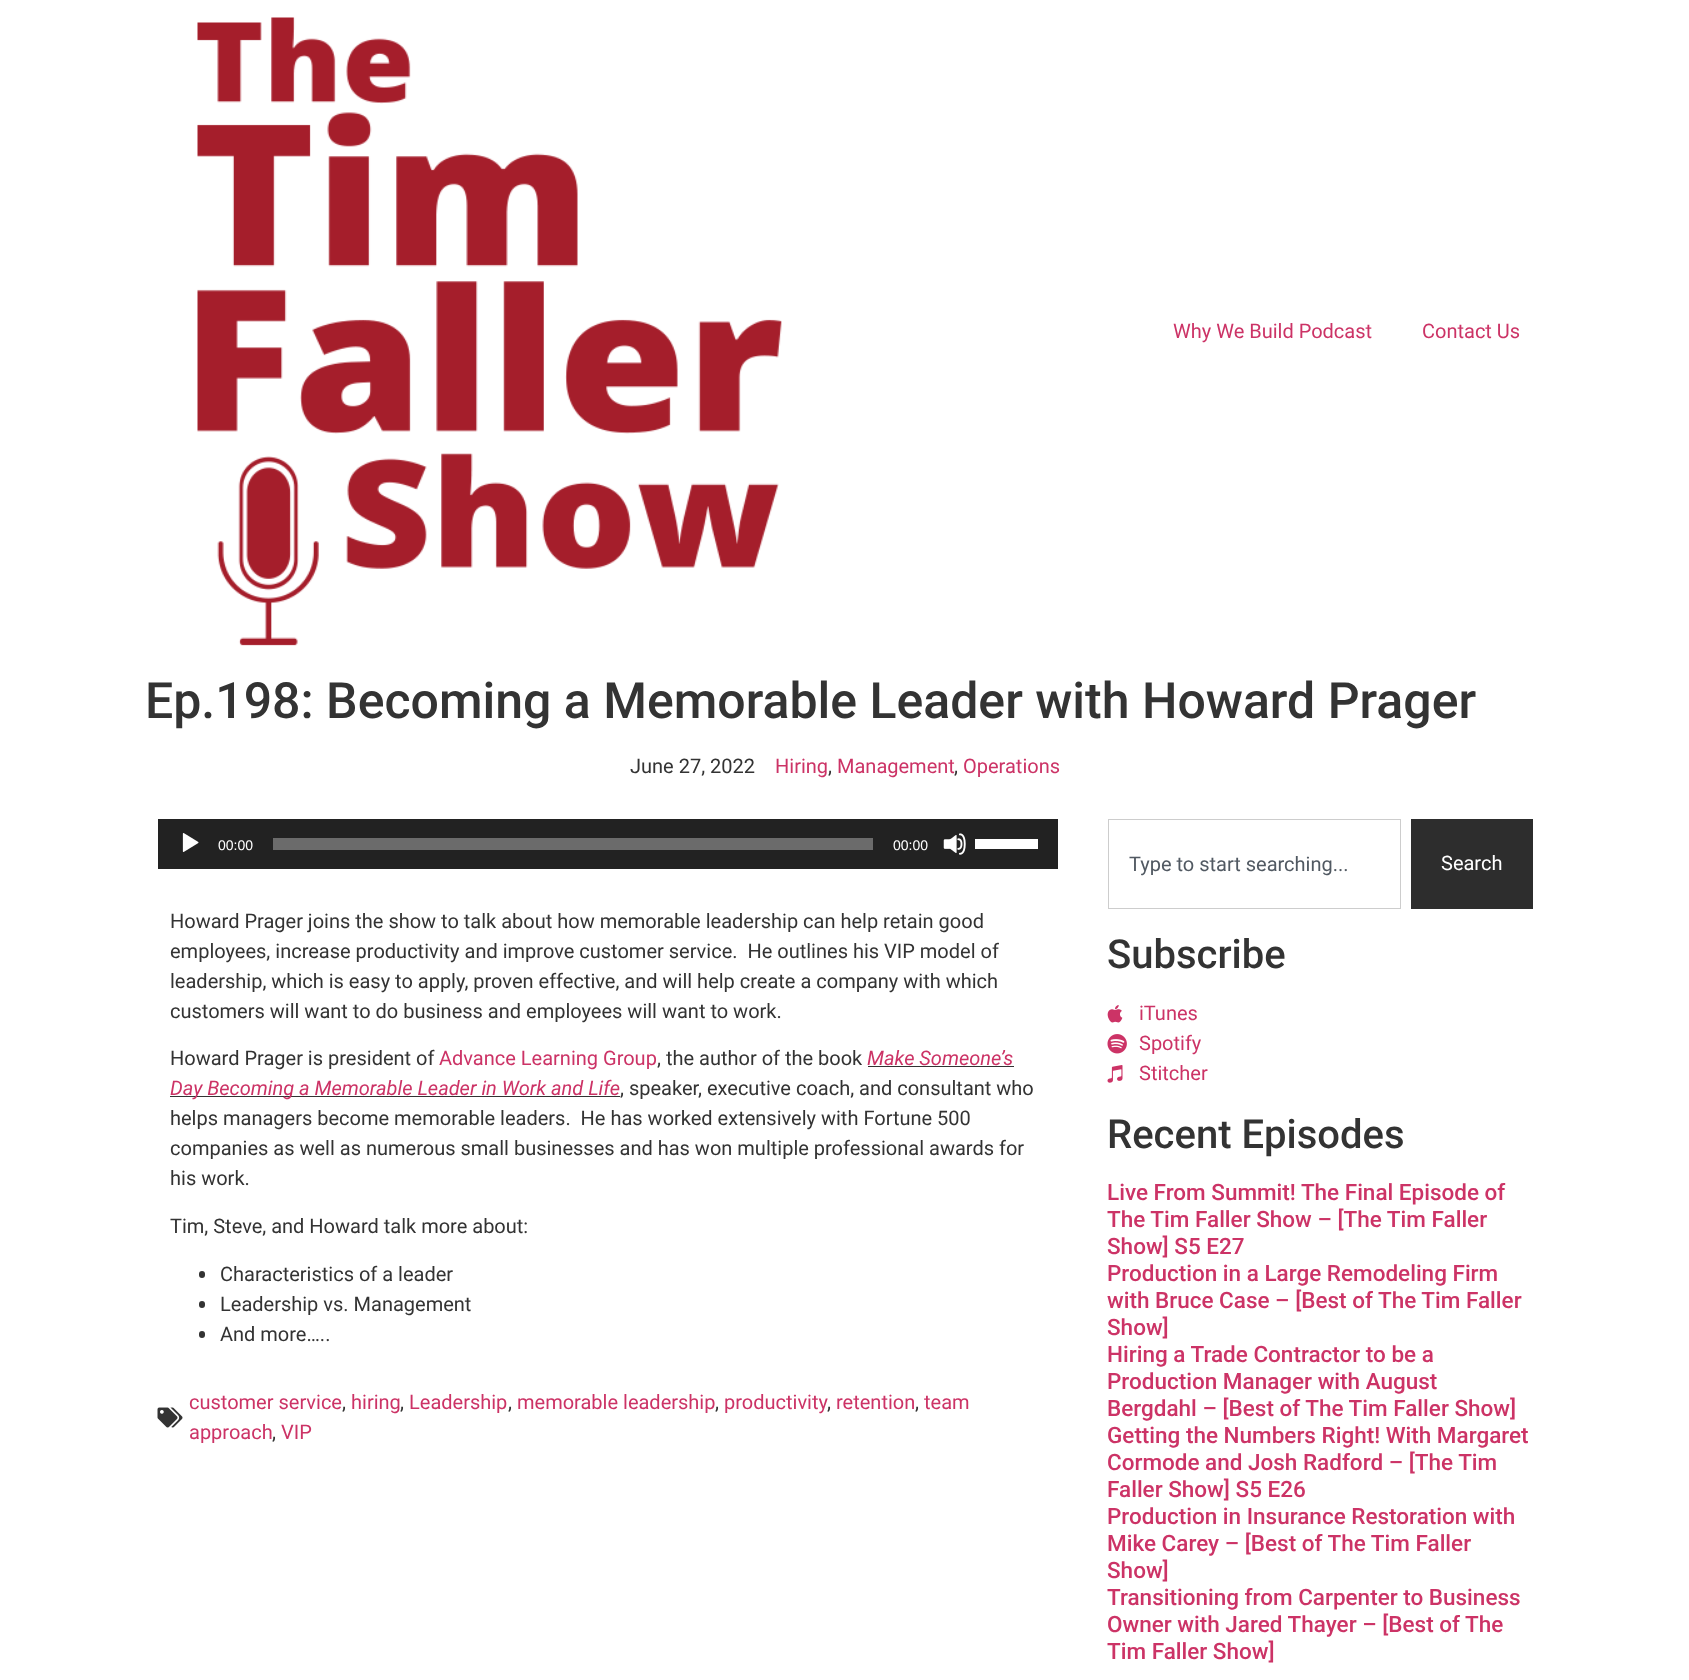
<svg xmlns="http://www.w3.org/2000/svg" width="1689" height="1680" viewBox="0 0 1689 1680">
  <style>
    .t1 { font: 20px Roboto; fill: #c36; }
    .t2 { font: 500 50px Roboto; fill: #333; }
    .t3 { font: 20px Roboto; fill: #333; }
    .t4 { font: 14px Liberation Sans; fill: #fff; }
    .t5 { font: italic 20px Roboto; fill: #c36; }
    .t6 { font: 20px Roboto; fill: #515962; }
    .t7 { font: 20px Roboto; fill: #fff; }
    .t8 { font: 500 40px Roboto; fill: #333; }
    .t9 { font: 500 22.5px Roboto; fill: #c36; }
  </style>
  <rect width="100%" height="100%" fill="#fff"/>
  <image x="197" y="17" width="585" height="629" href="images/1.png"/>
  <text x="1173" y="338" class="t1">Why We Build Podcast</text>
  <text x="1422" y="338" class="t1">Contact Us</text>
  <text x="145" y="718" class="t2">Ep.198: Becoming a Memorable Leader with Howard Prager</text>
  <text x="630" y="773" class="t3">June 27, 2022</text>
  <text x="775" y="773" class="t1">Hiring</text>
  <text x="828" y="773" class="t3">,</text>
  <text x="837" y="773" class="t1">Management</text>
  <text x="954" y="773" class="t3">,</text>
  <text x="963" y="773" class="t1">Operations</text>
  <rect x="158" y="819" width="900" height="50" fill="#222"/>
  <image x="182" y="833" width="17" height="19" href="images/2.png"/>
  <text x="218" y="850" class="t4">00:00</text>
  <rect x="273" y="838" width="600" height="12" fill="#6b6b6b"/>
  <text x="893" y="850" class="t4">00:00</text>
  <image x="943" y="833" width="23" height="22" href="images/3.png"/>
  <rect x="975" y="839" width="63" height="10" fill="#fff"/>
  <text x="170" y="928" class="t3">Howard Prager joins the show to talk about how memorable leadership can help retain good</text>
  <text x="170" y="958" class="t3" xml:space="preserve">employees, increase productivity and improve customer service.  He outlines his VIP model of</text>
  <text x="170" y="988" class="t3">leadership, which is easy to apply, proven effective, and will help create a company with which</text>
  <text x="170" y="1018" class="t3">customers will want to do business and employees will want to work.</text>
  <text x="170" y="1065" class="t3">Howard Prager is president of</text>
  <text x="439" y="1065" class="t1">Advance Learning Group</text>
  <text x="657" y="1065" class="t3">, the author of the book</text>
  <text x="867" y="1065" class="t5">Make Someone’s</text>
  <rect x="868" y="1066" width="146" height="1" fill="#333"/>
  <rect x="170" y="1096" width="450" height="1" fill="#333"/>
  <text x="170" y="1095" class="t5">Day Becoming a Memorable Leader in Work and Life</text>
  <text x="620" y="1095" class="t3">, speaker, executive coach, and consultant who</text>
  <text x="170" y="1125" class="t3" xml:space="preserve">helps managers become memorable leaders.  He has worked extensively with Fortune 500</text>
  <text x="170" y="1155" class="t3">companies as well as numerous small businesses and has won multiple professional awards for</text>
  <text x="170" y="1185" class="t3">his work.</text>
  <text x="170" y="1233" class="t3">Tim, Steve, and Howard talk more about:</text>
  <rect x="199" y="1271" width="6" height="7" rx="3" fill="#333"/>
  <text x="220" y="1281" class="t3">Characteristics of a leader</text>
  <rect x="199" y="1301" width="6" height="7" rx="3" fill="#333"/>
  <text x="220" y="1311" class="t3">Leadership vs. Management</text>
  <rect x="199" y="1331" width="6" height="7" rx="3" fill="#333"/>
  <text x="220" y="1341" class="t3">And more…..</text>
  <image x="157" y="1407" width="26" height="21" href="images/4.png"/>
  <text x="189" y="1409" class="t1">customer service</text>
  <text x="342" y="1409" class="t3">,</text>
  <text x="351" y="1409" class="t1">hiring</text>
  <text x="400" y="1409" class="t3">,</text>
  <text x="409" y="1409" class="t1">Leadership</text>
  <text x="508" y="1409" class="t3">,</text>
  <text x="517" y="1409" class="t1">memorable leadership</text>
  <text x="715" y="1409" class="t3">,</text>
  <text x="724" y="1409" class="t1">productivity</text>
  <text x="827" y="1409" class="t3">,</text>
  <text x="836" y="1409" class="t1">retention</text>
  <text x="915" y="1409" class="t3">,</text>
  <text x="924" y="1409" class="t1">team</text>
  <text x="189" y="1439" class="t1">approach</text>
  <text x="272" y="1439" class="t3">,</text>
  <text x="281" y="1439" class="t1">VIP</text>
  <rect x="1108.5" y="819.5" width="292" height="89" fill="none" stroke="#cdcdcd"/>
  <text x="1129" y="871" class="t6">Type to start searching...</text>
  <rect x="1411" y="819" width="122" height="90" fill="#2d2d2d"/>
  <text x="1441" y="870" class="t7">Search</text>
  <text x="1107" y="968" class="t8">Subscribe</text>
  <image x="1107" y="1005" width="16" height="18" href="images/5.png"/>
  <text x="1139" y="1020" class="t1">iTunes</text>
  <image x="1107" y="1034" width="20" height="20" href="images/6.png"/>
  <text x="1139" y="1050" class="t1">Spotify</text>
  <image x="1107" y="1065" width="16" height="18" href="images/7.png"/>
  <text x="1139" y="1080" class="t1">Stitcher</text>
  <text x="1107" y="1148" class="t8">Recent Episodes</text>
  <text x="1107" y="1200" class="t9">Live From Summit! The Final Episode of</text>
  <text x="1107" y="1227" class="t9">The Tim Faller Show – [The Tim Faller</text>
  <text x="1107" y="1254" class="t9">Show] S5 E27</text>
  <text x="1107" y="1281" class="t9">Production in a Large Remodeling Firm</text>
  <text x="1107" y="1308" class="t9">with Bruce Case – [Best of The Tim Faller</text>
  <text x="1107" y="1335" class="t9">Show]</text>
  <text x="1107" y="1362" class="t9">Hiring a Trade Contractor to be a</text>
  <text x="1107" y="1389" class="t9">Production Manager with August</text>
  <text x="1107" y="1416" class="t9">Bergdahl – [Best of The Tim Faller Show]</text>
  <text x="1107" y="1443" class="t9">Getting the Numbers Right! With Margaret</text>
  <text x="1107" y="1470" class="t9">Cormode and Josh Radford – [The Tim</text>
  <text x="1107" y="1497" class="t9">Faller Show] S5 E26</text>
  <text x="1107" y="1524" class="t9">Production in Insurance Restoration with</text>
  <text x="1107" y="1551" class="t9">Mike Carey – [Best of The Tim Faller</text>
  <text x="1107" y="1578" class="t9">Show]</text>
  <text x="1107" y="1605" class="t9">Transitioning from Carpenter to Business</text>
  <text x="1107" y="1632" class="t9">Owner with Jared Thayer – [Best of The</text>
  <text x="1107" y="1659" class="t9">Tim Faller Show]</text>
</svg>
